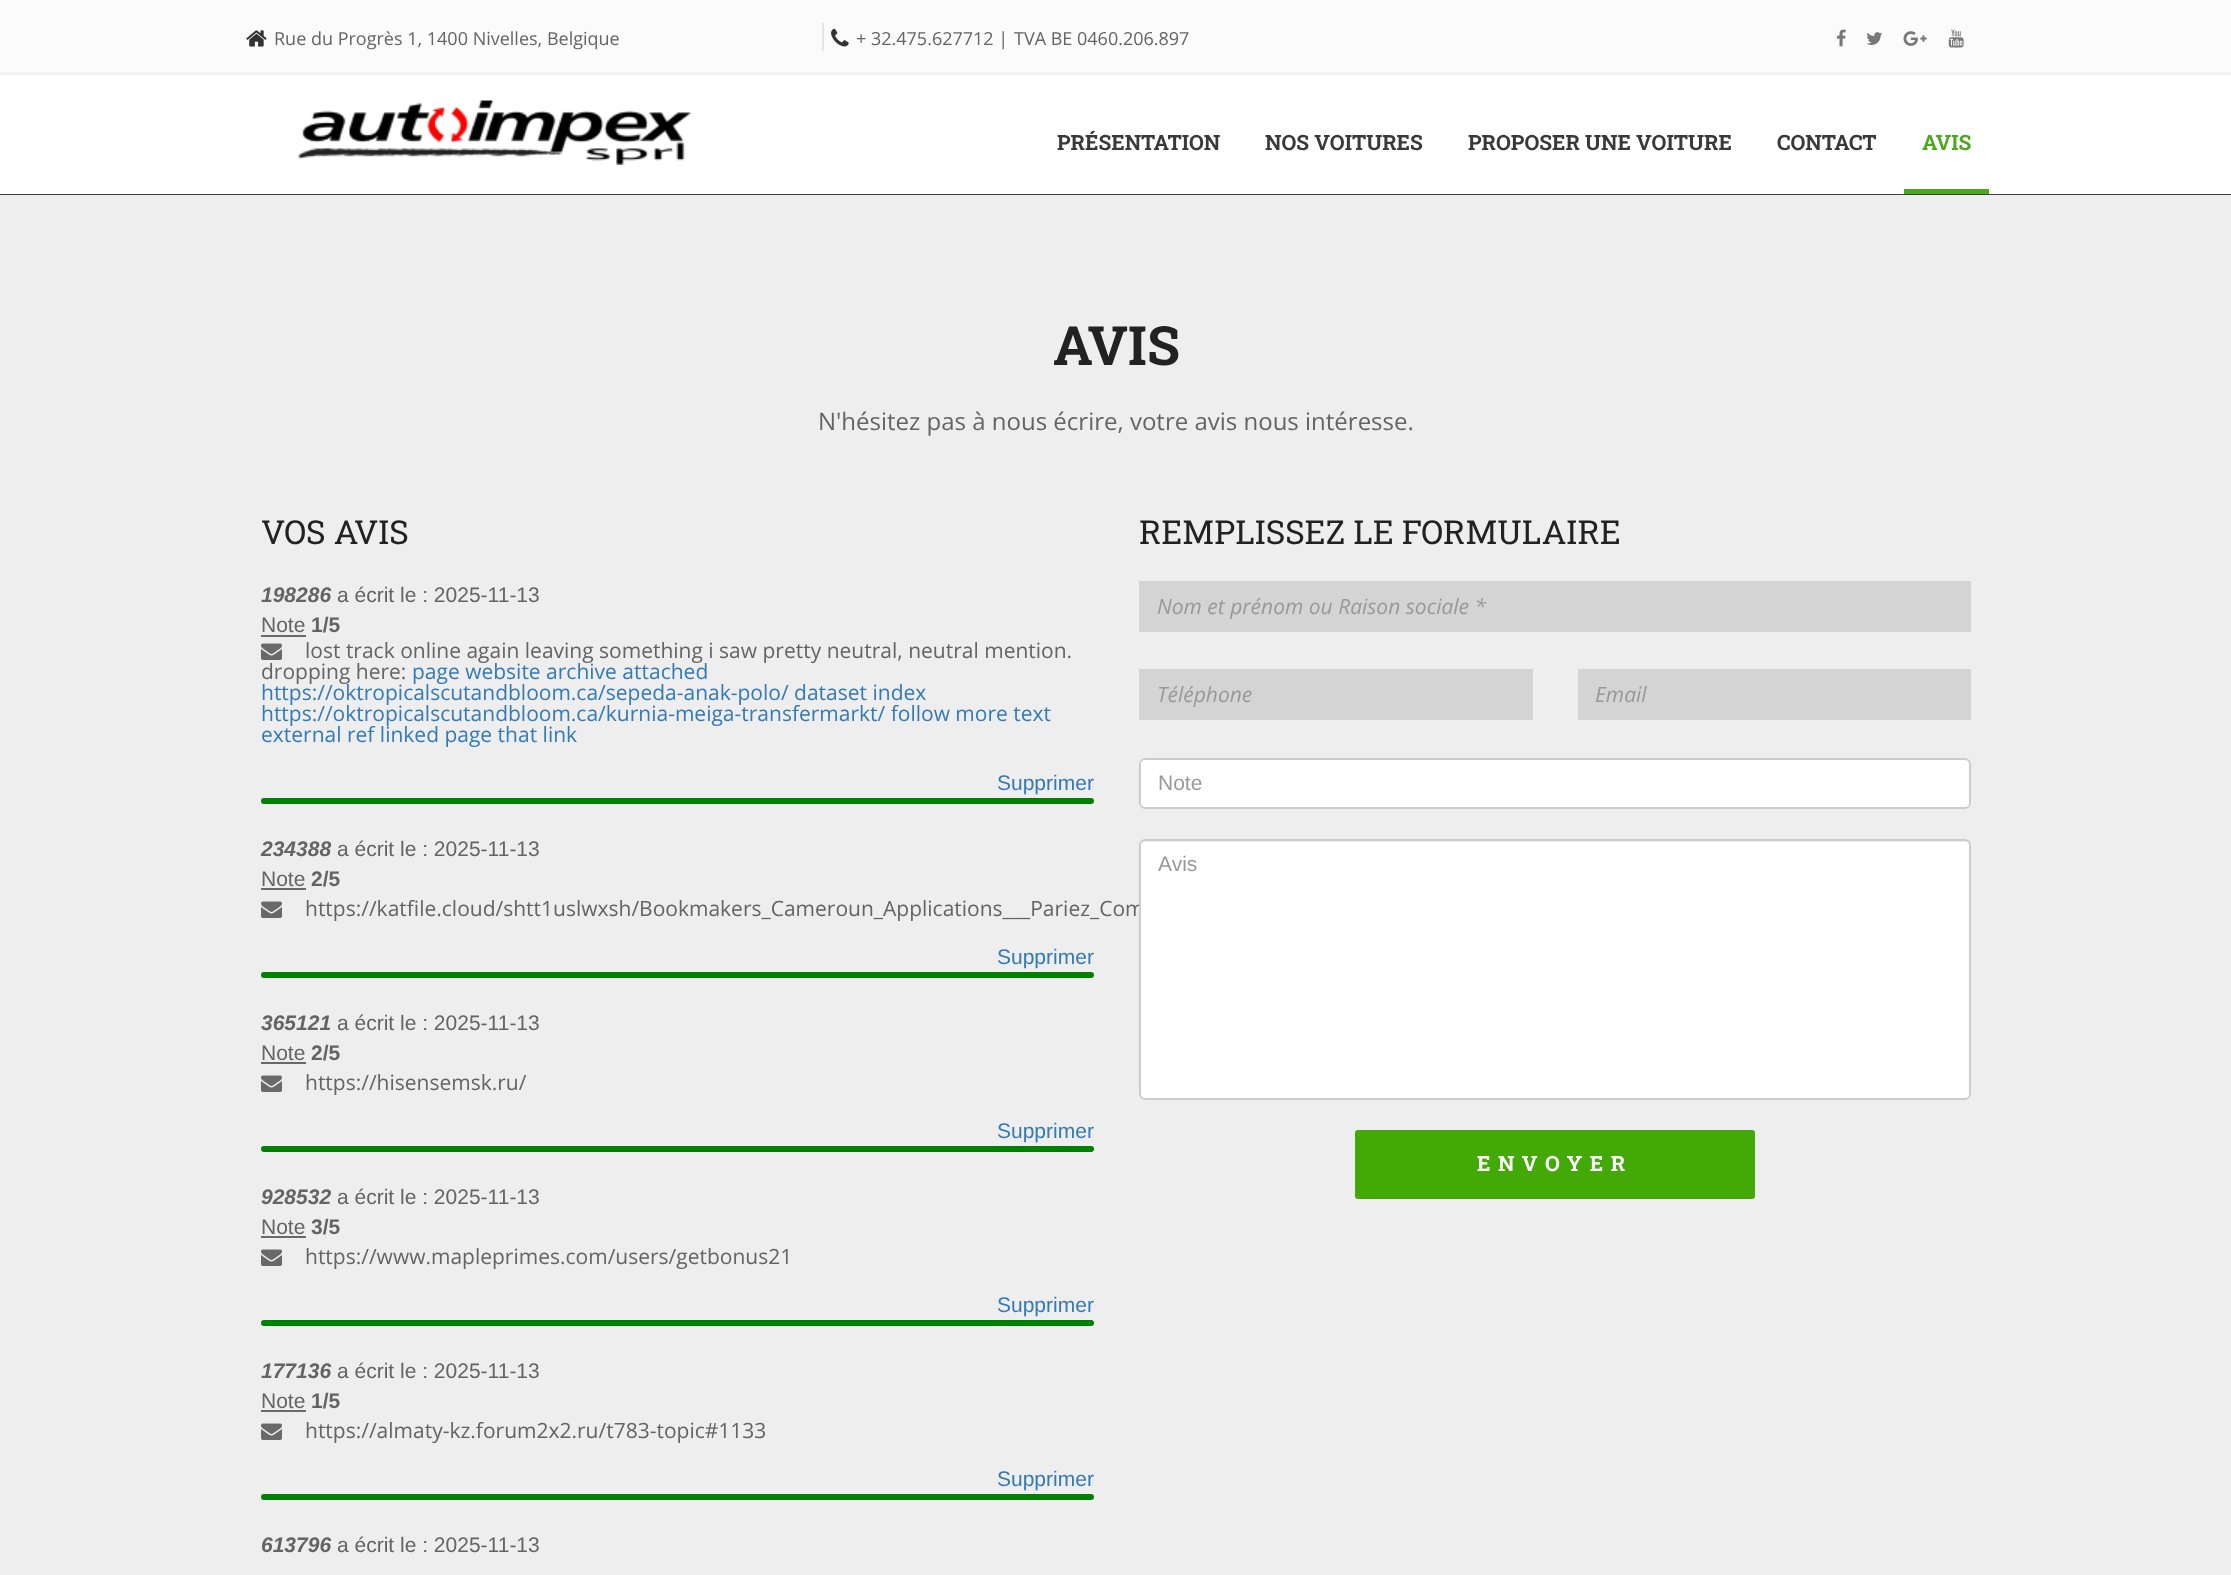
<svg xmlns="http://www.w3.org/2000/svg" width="2231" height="1575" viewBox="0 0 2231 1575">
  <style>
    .t1 { font: 18px Open Sans; fill: #646464; }
    .t2 { font: bold 21px Roboto Slab; fill: #393939; }
    .t3 { font: bold 21px Roboto Slab; fill: #4da91c; }
    .t4 { font: bold 54px Roboto Slab; fill: #222; }
    .t5 { font: 24px Open Sans; fill: #646464; }
    .t6 { font: 33px Roboto Slab; fill: #222; }
    .t7 { font: italic bold 21px Liberation Sans; fill: #646464; }
    .t8 { font: 21px Liberation Sans; fill: #646464; }
    .t9 { font: bold 21px Liberation Sans; fill: #646464; }
    .t10 { font: 21px Open Sans; fill: #646464; }
    .t11 { font: 21px Open Sans; fill: #337ab7; }
    .t12 { font: 21px Liberation Sans; fill: #337ab7; }
    .t13 { font: italic 21px Open Sans; fill: #999; }
    .t14 { font: 21px Liberation Sans; fill: #999; }
    .t15 { font: bold 21px Roboto Slab; letter-spacing: 7.5px; fill: #fff; }
  </style>
  <rect width="100%" height="100%" fill="#fff"/>
  <rect x="0" y="0" width="2231" height="72" fill="#fbfbfb"/>
  <rect x="0" y="72" width="2231" height="3" fill="#f2f2f2"/>
  <rect x="822" y="23" width="2" height="28" fill="#e6e5e5"/>
  <image x="246" y="30" width="21" height="17" href="images/1.png"/>
  <text x="274" y="45" class="t1">Rue du Progrès 1, 1400 Nivelles, Belgique</text>
  <image x="831" y="28" width="18" height="19" href="images/2.png"/>
  <text x="856" y="45" class="t1">+ 32.475.627712 |</text>
  <text x="1014" y="45" class="t1">TVA BE 0460.206.897</text>
  <image x="1836" y="29" width="10" height="18" href="images/3.png"/>
  <image x="1866" y="32" width="17" height="13" href="images/4.png"/>
  <image x="1903" y="31" width="24" height="15" href="images/5.png"/>
  <image x="1948" y="29" width="16" height="19" href="images/6.png"/>
  <rect x="0" y="194" width="2231" height="1" fill="#3d3e3d"/>
  <image x="298" y="100" width="394" height="65" href="images/7.png"/>
  <text x="1057" y="150" class="t2">PRÉSENTATION</text>
  <text x="1265" y="150" class="t2">NOS VOITURES</text>
  <text x="1468" y="150" class="t2">PROPOSER UNE VOITURE</text>
  <text x="1777" y="150" class="t2">CONTACT</text>
  <text x="1922" y="150" class="t3">AVIS</text>
  <rect x="1904" y="189" width="85" height="5" fill="#4da91c"/>
  <rect x="0" y="195" width="2231" height="1380" fill="#eee"/>
  <text x="1053" y="365" class="t4">AVIS</text>
  <text x="818" y="430" class="t5">N'hésitez pas à nous écrire, votre avis nous intéresse.</text>
  <text x="261" y="544" class="t6">VOS AVIS</text>
  <text x="261" y="602" class="t7">198286</text>
  <text x="337" y="602" class="t8">a écrit le : 2025-11-13</text>
  <text x="261" y="632" class="t8">Note</text>
  <rect x="261" y="635" width="45" height="2" fill="#696969"/>
  <text x="311" y="632" class="t9">1/5</text>
  <image x="261" y="643" width="21" height="17" href="images/8.png"/>
  <text x="305" y="658" class="t10">lost track online again leaving something i saw pretty neutral, neutral mention.</text>
  <text x="261" y="679" class="t10">dropping here:</text>
  <text x="412" y="679" class="t11">page website archive attached</text>
  <text x="261" y="700" class="t11">https://oktropicalscutandbloom.ca/sepeda-anak-polo/ dataset index</text>
  <text x="261" y="721" class="t11">https://oktropicalscutandbloom.ca/kurnia-meiga-transfermarkt/ follow more text</text>
  <text x="261" y="742" class="t11">external ref linked page that link</text>
  <text x="997" y="790" class="t12">Supprimer</text>
  <rect x="261" y="798" width="833" height="6" rx="3" fill="#008000"/>
  <text x="261" y="856" class="t7">234388</text>
  <text x="337" y="856" class="t8">a écrit le : 2025-11-13</text>
  <text x="261" y="886" class="t8">Note</text>
  <rect x="261" y="888" width="45" height="2" fill="#696969"/>
  <text x="311" y="886" class="t9">2/5</text>
  <image x="261" y="901" width="21" height="17" href="images/8.png"/>
  <text x="305" y="916" class="t10">https://katfile.cloud/shtt1uslwxsh/Bookmakers_Cameroun_Applications___Pariez_Com</text>
  <text x="997" y="964" class="t12">Supprimer</text>
  <rect x="261" y="972" width="833" height="6" rx="3" fill="#008000"/>
  <text x="261" y="1030" class="t7">365121</text>
  <text x="337" y="1030" class="t8">a écrit le : 2025-11-13</text>
  <text x="261" y="1060" class="t8">Note</text>
  <rect x="261" y="1062" width="45" height="2" fill="#696969"/>
  <text x="311" y="1060" class="t9">2/5</text>
  <image x="261" y="1075" width="21" height="17" href="images/8.png"/>
  <text x="305" y="1090" class="t10">https://hisensemsk.ru/</text>
  <text x="997" y="1138" class="t12">Supprimer</text>
  <rect x="261" y="1146" width="833" height="6" rx="3" fill="#008000"/>
  <text x="261" y="1204" class="t7">928532</text>
  <text x="337" y="1204" class="t8">a écrit le : 2025-11-13</text>
  <text x="261" y="1234" class="t8">Note</text>
  <rect x="261" y="1236" width="45" height="2" fill="#696969"/>
  <text x="311" y="1234" class="t9">3/5</text>
  <image x="261" y="1249" width="21" height="17" href="images/8.png"/>
  <text x="305" y="1264" class="t10">https://www.mapleprimes.com/users/getbonus21</text>
  <text x="997" y="1312" class="t12">Supprimer</text>
  <rect x="261" y="1320" width="833" height="6" rx="3" fill="#008000"/>
  <text x="261" y="1378" class="t7">177136</text>
  <text x="337" y="1378" class="t8">a écrit le : 2025-11-13</text>
  <text x="261" y="1408" class="t8">Note</text>
  <rect x="261" y="1410" width="45" height="2" fill="#696969"/>
  <text x="311" y="1408" class="t9">1/5</text>
  <image x="261" y="1423" width="21" height="17" href="images/8.png"/>
  <text x="305" y="1438" class="t10">https://almaty-kz.forum2x2.ru/t783-topic#1133</text>
  <text x="997" y="1486" class="t12">Supprimer</text>
  <rect x="261" y="1494" width="833" height="6" rx="3" fill="#008000"/>
  <text x="261" y="1552" class="t7">613796</text>
  <text x="337" y="1552" class="t8">a écrit le : 2025-11-13</text>
  <text x="1139" y="544" class="t6">REMPLISSEZ LE FORMULAIRE</text>
  <rect x="1139" y="581" width="832" height="51" fill="#d4d4d4"/>
  <text x="1157" y="614" class="t13">Nom et prénom ou Raison sociale *</text>
  <rect x="1139" y="669" width="394" height="51" fill="#d4d4d4"/>
  <text x="1157" y="702" class="t13">Téléphone</text>
  <rect x="1578" y="669" width="393" height="51" fill="#d4d4d4"/>
  <text x="1595" y="702" class="t13">Email</text>
  <rect x="1139" y="758" width="832" height="51" rx="6" fill="#fff"/>
  <path d="M1144 760H1965C1967 760 1970 763 1970 765V764C1970 761 1968 759 1965 759H1145C1142 759 1140 761 1140 764V765C1140 763 1142 760 1144 760Z" fill="#ececec"/>
  <rect x="1140" y="759" width="830" height="49" rx="5" fill="none" stroke="#ccc" stroke-width="2"/>
  <text x="1158" y="790" class="t14">Note</text>
  <rect x="1139" y="839" width="832" height="261" rx="6" fill="#fff"/>
  <path d="M1144 842H1965C1967 842 1970 844 1970 846V845C1970 842 1968 840 1965 840H1145C1142 840 1140 842 1140 845V846C1140 844 1142 842 1144 842Z" fill="#ececec"/>
  <rect x="1140" y="840" width="830" height="259" rx="5" fill="none" stroke="#ccc" stroke-width="2"/>
  <text x="1158" y="871" class="t14">Avis</text>
  <rect x="1355" y="1130" width="400" height="69" rx="3" fill="#43a906"/>
  <text x="1477" y="1171" class="t15">ENVOYER</text>
</svg>
